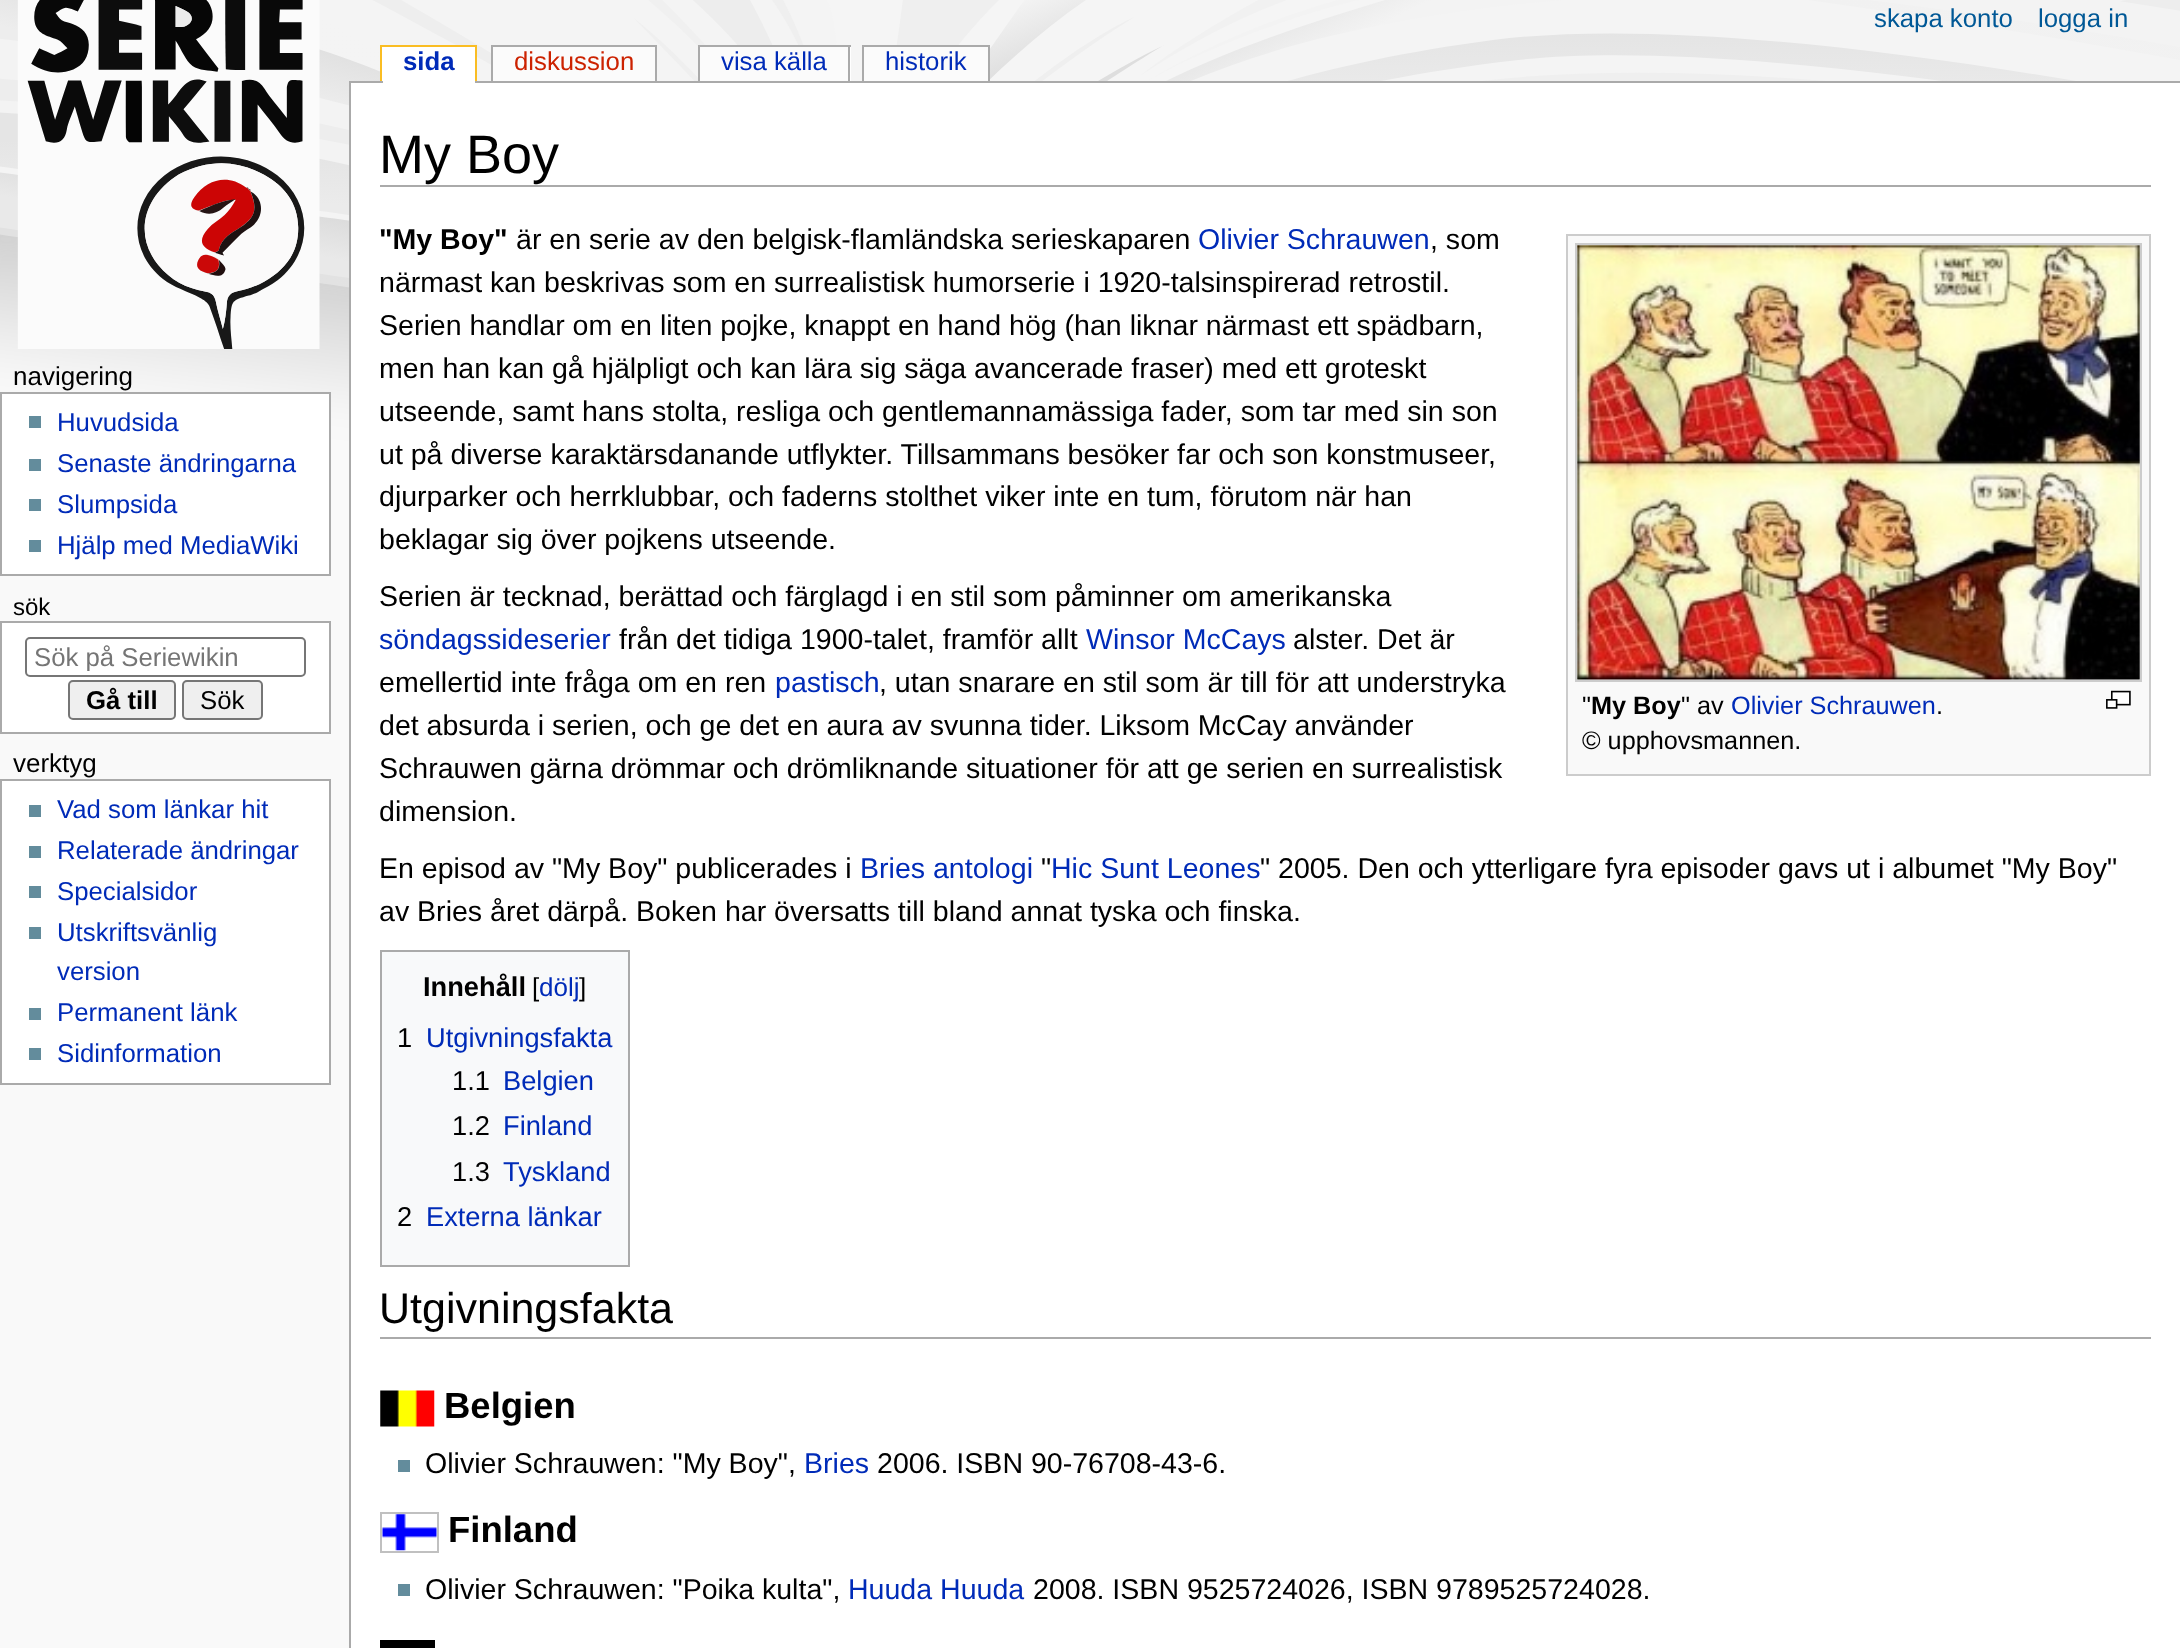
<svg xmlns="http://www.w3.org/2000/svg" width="2180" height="1648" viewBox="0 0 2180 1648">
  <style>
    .t1 { font: 25.75px Liberation Sans; fill: #005896; }
    .t2 { font: bold 25.75px Liberation Sans; fill: #002bb8; }
    .t3 { font: 25.75px Liberation Sans; fill: #c20; }
    .t4 { font: 25.75px Liberation Sans; fill: #002bb8; }
    .t5 { font: 26px Liberation Sans; fill: #000; }
    .t6 { font: 24px Liberation Sans; fill: #000; }
    .t7 { font: 25.75px Liberation Sans; fill: #757575; }
    .t8 { font: bold 25.75px Liberation Sans; fill: #000; }
    .t9 { font: 25.75px Liberation Sans; fill: #000; }
    .t10 { font: 54px Liberation Sans; fill: #000; }
    .t11 { font: bold 28.55px Liberation Sans; fill: #000; }
    .t12 { font: 28.55px Liberation Sans; fill: #000; }
    .t13 { font: 28.55px Liberation Sans; fill: #002bb8; }
    .t14 { font: 25.25px Liberation Sans; fill: #000; }
    .t15 { font: bold 25.25px Liberation Sans; fill: #000; }
    .t16 { font: 25.25px Liberation Sans; fill: #002bb8; }
    .t17 { font: bold 27.25px Liberation Sans; fill: #000; }
    .t18 { font: 26px Liberation Sans; fill: #002bb8; }
    .t19 { font: 27.25px Liberation Sans; fill: #000; }
    .t20 { font: 27.25px Liberation Sans; fill: #002bb8; }
    .t21 { font: 43px Liberation Sans; fill: #000; }
    .t22 { font: bold 36.5px Liberation Sans; fill: #000; }
  </style>
  <defs>
    <clipPath id="clip1"><rect x="34" y="644" width="236" height="27"/></clipPath>
  </defs>
  <rect width="100%" height="100%" fill="#f9f9f9"/>
  <image x="0" y="0" width="2180" height="471" href="images/1.png"/>
  <image x="17" y="0" width="303" height="349" href="images/2.png"/>
  <text x="1874" y="27" class="t1">skapa konto</text>
  <text x="2038" y="27" class="t1">logga in</text>
  <rect x="349" y="81" width="1831" height="2" fill="#aaa"/>
  <rect x="383" y="47" width="92" height="36" fill="#fff"/>
  <text x="403" y="70" class="t2">sida</text>
  <rect x="382" y="47" width="1" height="34" fill="#fff"/>
  <rect x="380" y="45" width="97" height="2" fill="#fabd23"/>
  <rect x="475" y="45" width="2" height="36" fill="#fabd23"/>
  <rect x="380" y="45" width="2" height="36" fill="#fabd23"/>
  <rect x="493" y="47" width="162" height="34" fill="#fbfbfb"/>
  <text x="514" y="70" class="t3">diskussion</text>
  <rect x="491" y="45" width="166" height="2" fill="#aaa"/>
  <rect x="655" y="45" width="2" height="36" fill="#aaa"/>
  <rect x="491" y="45" width="2" height="36" fill="#aaa"/>
  <rect x="700" y="47" width="148" height="34" fill="#fbfbfb"/>
  <text x="721" y="70" class="t4">visa källa</text>
  <rect x="850" y="47" width="1" height="34" fill="#fff"/>
  <rect x="698" y="45" width="153" height="2" fill="#aaa"/>
  <rect x="848" y="45" width="2" height="36" fill="#aaa"/>
  <rect x="698" y="45" width="2" height="36" fill="#aaa"/>
  <rect x="864" y="47" width="124" height="34" fill="#fbfbfb"/>
  <text x="885" y="70" class="t4">historik</text>
  <rect x="862" y="45" width="128" height="2" fill="#aaa"/>
  <rect x="988" y="45" width="2" height="36" fill="#aaa"/>
  <rect x="862" y="45" width="2" height="36" fill="#aaa"/>
  <text x="13" y="385" class="t5">navigering</text>
  <rect x="1" y="393" width="329" height="182" fill="#fff" stroke="#aaa" stroke-width="2"/>
  <rect x="29" y="416" width="12" height="12" fill="#638c9c"/>
  <text x="57" y="431" class="t4">Huvudsida</text>
  <rect x="29" y="459" width="12" height="12" fill="#638c9c"/>
  <text x="57" y="472" class="t4">Senaste ändringarna</text>
  <rect x="29" y="499" width="12" height="12" fill="#638c9c"/>
  <text x="57" y="513" class="t4">Slumpsida</text>
  <rect x="29" y="540" width="12" height="12" fill="#638c9c"/>
  <text x="57" y="554" class="t4">Hjälp med MediaWiki</text>
  <text x="13" y="615" class="t6">sök</text>
  <rect x="1" y="622" width="329" height="111" fill="#fff" stroke="#aaa" stroke-width="2"/>
  <rect x="26" y="638" width="279" height="38" rx="4" fill="none" stroke="#767676" stroke-width="2"/>
  <g clip-path="url(#clip1)">
    <text x="34" y="666" class="t7">Sök på Seriewikin</text>
  </g>
  <rect x="69" y="681" width="106" height="38" rx="4" fill="#efefef" stroke="#767676" stroke-width="2"/>
  <text x="86" y="709" class="t8">Gå till</text>
  <rect x="183" y="681" width="79" height="38" rx="4" fill="#efefef" stroke="#767676" stroke-width="2"/>
  <text x="200" y="709" class="t9">Sök</text>
  <text x="13" y="772" class="t5">verktyg</text>
  <rect x="1" y="780" width="329" height="304" fill="#fff" stroke="#aaa" stroke-width="2"/>
  <rect x="29" y="805" width="12" height="12" fill="#638c9c"/>
  <text x="57" y="818" class="t4">Vad som länkar hit</text>
  <rect x="29" y="846" width="12" height="12" fill="#638c9c"/>
  <text x="57" y="859" class="t4">Relaterade ändringar</text>
  <rect x="29" y="886" width="12" height="12" fill="#638c9c"/>
  <text x="57" y="900" class="t4">Specialsidor</text>
  <rect x="29" y="927" width="12" height="12" fill="#638c9c"/>
  <text x="57" y="941" class="t4">Utskriftsvänlig</text>
  <text x="57" y="980" class="t4">version</text>
  <rect x="29" y="1008" width="12" height="12" fill="#638c9c"/>
  <text x="57" y="1021" class="t4">Permanent länk</text>
  <rect x="29" y="1048" width="12" height="12" fill="#638c9c"/>
  <text x="57" y="1062" class="t4">Sidinformation</text>
  <rect x="351" y="83" width="1829" height="1565" fill="#fff"/>
  <rect x="349" y="81" width="2" height="1567" fill="#aaa"/>
  <rect x="380" y="185" width="1771" height="2" fill="#aaa"/>
  <text x="379" y="173" class="t10">My Boy</text>
  <text x="379" y="249" class="t11">"My Boy"</text>
  <text x="516" y="249" class="t12">är en serie av den belgisk-flamländska serieskaparen</text>
  <text x="1198" y="249" class="t13">Olivier Schrauwen</text>
  <text x="1430" y="249" class="t12">, som</text>
  <text x="379" y="292" class="t12">närmast kan beskrivas som en surrealistisk humorserie i 1920-talsinspirerad retrostil.</text>
  <text x="379" y="335" class="t12">Serien handlar om en liten pojke, knappt en hand hög (han liknar närmast ett spädbarn,</text>
  <text x="379" y="378" class="t12">men han kan gå hjälpligt och kan lära sig säga avancerade fraser) med ett groteskt</text>
  <text x="379" y="421" class="t12">utseende, samt hans stolta, resliga och gentlemannamässiga fader, som tar med sin son</text>
  <text x="379" y="464" class="t12">ut på diverse karaktärsdanande utflykter. Tillsammans besöker far och son konstmuseer,</text>
  <text x="379" y="506" class="t12">djurparker och herrklubbar, och faderns stolthet viker inte en tum, förutom när han</text>
  <text x="379" y="549" class="t12">beklagar sig över pojkens utseende.</text>
  <text x="379" y="606" class="t12">Serien är tecknad, berättad och färglagd i en stil som påminner om amerikanska</text>
  <text x="379" y="649" class="t13">söndagssideserier</text>
  <text x="619" y="649" class="t12">från det tidiga 1900-talet, framför allt</text>
  <text x="1086" y="649" class="t13">Winsor McCays</text>
  <text x="1293" y="649" class="t12">alster. Det är</text>
  <text x="379" y="692" class="t12">emellertid inte fråga om en ren</text>
  <text x="775" y="692" class="t13">pastisch</text>
  <text x="879" y="692" class="t12">, utan snarare en stil som är till för att understryka</text>
  <text x="379" y="735" class="t12">det absurda i serien, och ge det en aura av svunna tider. Liksom McCay använder</text>
  <text x="379" y="778" class="t12">Schrauwen gärna drömmar och drömliknande situationer för att ge serien en surrealistisk</text>
  <text x="379" y="821" class="t12">dimension.</text>
  <rect x="1568" y="236" width="581" height="538" fill="#f9f9f9"/>
  <rect x="1566" y="234" width="585" height="2" fill="#ccc"/>
  <rect x="1566" y="774" width="585" height="2" fill="#ccc"/>
  <rect x="2149" y="234" width="2" height="542" fill="#ccc"/>
  <rect x="1566" y="234" width="2" height="542" fill="#ccc"/>
  <rect x="1576" y="244" width="565" height="437" fill="none" stroke="#ccc" stroke-width="2"/>
  <image x="1577" y="245" width="563" height="435" href="images/3.png"/>
  <image x="2106" y="690" width="25" height="19" href="images/4.png"/>
  <text x="1582" y="714" class="t14">"</text>
  <text x="1591" y="714" class="t15">My Boy</text>
  <text x="1681" y="714" class="t14">" av</text>
  <text x="1731" y="714" class="t16">Olivier Schrauwen</text>
  <text x="1936" y="714" class="t14">.</text>
  <text x="1582" y="749" class="t14">© upphovsmannen.</text>
  <text x="379" y="878" class="t12">En episod av "My Boy" publicerades i</text>
  <text x="860" y="878" class="t13">Bries antologi</text>
  <text x="1041" y="878" class="t12">"</text>
  <text x="1051" y="878" class="t13">Hic Sunt Leones</text>
  <text x="1260" y="878" class="t12">" 2005. Den och ytterligare fyra episoder gavs ut i albumet "My Boy"</text>
  <text x="379" y="921" class="t12">av Bries året därpå. Boken har översatts till bland annat tyska och finska.</text>
  <rect x="381" y="951" width="248" height="315" fill="#f8f9fa" stroke="#aaa" stroke-width="2"/>
  <text x="423" y="996" class="t17">Innehåll</text>
  <text x="532" y="996" class="t5">[</text>
  <text x="539" y="996" class="t18">dölj</text>
  <text x="579" y="996" class="t5">]</text>
  <text x="397" y="1047" class="t19">1</text>
  <text x="426" y="1047" class="t20">Utgivningsfakta</text>
  <text x="452" y="1090" class="t19">1.1</text>
  <text x="503" y="1090" class="t20">Belgien</text>
  <text x="452" y="1135" class="t19">1.2</text>
  <text x="503" y="1135" class="t20">Finland</text>
  <text x="452" y="1181" class="t19">1.3</text>
  <text x="503" y="1181" class="t20">Tyskland</text>
  <text x="397" y="1226" class="t19">2</text>
  <text x="426" y="1226" class="t20">Externa länkar</text>
  <rect x="380" y="1337" width="1771" height="2" fill="#aaa"/>
  <text x="379" y="1323" class="t21">Utgivningsfakta</text>
  <image x="380" y="1390" width="55" height="37" href="images/5.png"/>
  <text x="444" y="1418" class="t22">Belgien</text>
  <rect x="398" y="1460" width="12" height="12" fill="#638c9c"/>
  <text x="425" y="1473" class="t12">Olivier Schrauwen: "My Boy",</text>
  <text x="804" y="1473" class="t13">Bries</text>
  <text x="877" y="1473" class="t12">2006. ISBN 90-76708-43-6.</text>
  <rect x="381" y="1513" width="57" height="39" fill="none" stroke="#c0c0c0" stroke-width="2"/>
  <image x="382" y="1514" width="55" height="37" href="images/6.png"/>
  <text x="448" y="1542" class="t22">Finland</text>
  <rect x="398" y="1584" width="12" height="12" fill="#638c9c"/>
  <text x="425" y="1599" class="t12">Olivier Schrauwen: "Poika kulta",</text>
  <text x="848" y="1599" class="t13">Huuda Huuda</text>
  <text x="1033" y="1599" class="t12">2008. ISBN 9525724026, ISBN 9789525724028.</text>
  <rect x="380" y="1640" width="55" height="8" fill="#000"/>
</svg>
